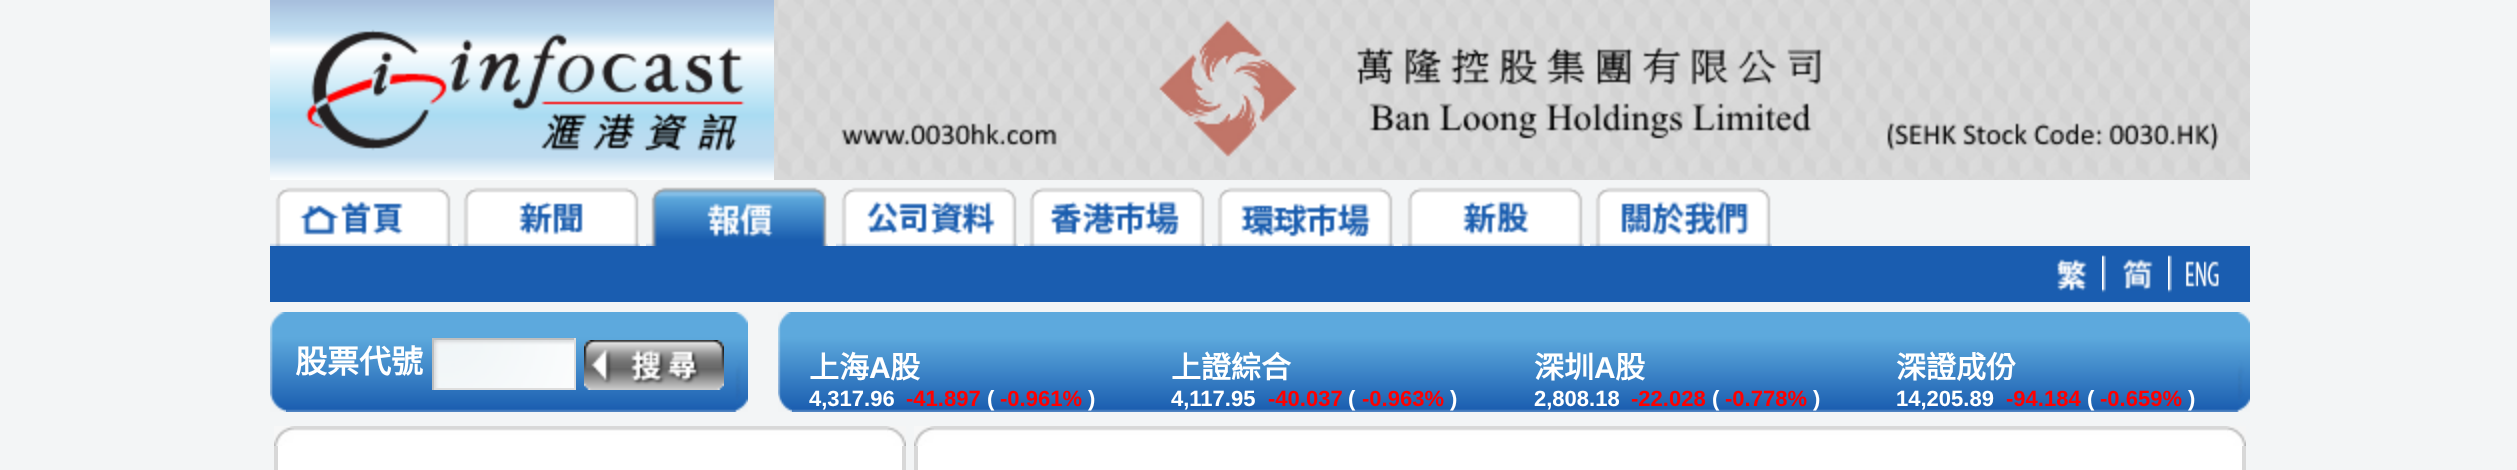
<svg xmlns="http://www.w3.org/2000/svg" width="2517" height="470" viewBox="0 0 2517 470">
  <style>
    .t1 { font: bold 32px Noto Sans CJK TC; fill: #fff; }
    .t2 { font: bold 30px Noto Sans CJK TC; fill: #fff; }
    .t3 { font: bold 30px Liberation Sans; fill: #fff; }
    .t4 { font: bold 22px Liberation Sans; fill: #fff; }
    .t5 { font: bold 22px Liberation Sans; fill: #f00; }
  </style>
  <rect width="100%" height="100%" fill="#f3f5f6"/>
  <image x="270" y="0" width="504" height="180" href="images/1.png"/>
  <image x="774" y="0" width="1476" height="180" href="images/2.png"/>
  <rect x="270" y="246" width="1980" height="56" fill="#1a5db0"/>
  <image x="270" y="187" width="182" height="59" href="images/3.png"/>
  <image x="458" y="187" width="182" height="59" href="images/4.png"/>
  <image x="646" y="187" width="182" height="59" href="images/5.png"/>
  <image x="836" y="187" width="182" height="59" href="images/6.png"/>
  <image x="1024" y="187" width="182" height="59" href="images/7.png"/>
  <image x="1212" y="187" width="182" height="59" href="images/8.png"/>
  <image x="1402" y="187" width="182" height="59" href="images/9.png"/>
  <image x="1590" y="187" width="182" height="59" href="images/10.png"/>
  <image x="2056" y="259" width="31" height="32" href="images/11.png"/>
  <image x="2102" y="255" width="4" height="38" href="images/12.png"/>
  <image x="2122" y="259" width="31" height="32" href="images/13.png"/>
  <image x="2168" y="255" width="4" height="38" href="images/12.png"/>
  <image x="2185" y="261" width="34" height="26" href="images/14.png"/>
  <image x="270" y="312" width="16" height="100" href="images/15.png"/>
  <image x="286" y="312" width="448" height="100" href="images/16.png"/>
  <text x="295" y="373" class="t1">股票代號</text>
  <image x="434" y="340" width="140" height="48" href="images/17.png"/>
  <rect x="432" y="338" width="144" height="2" fill="#bfbfbf"/>
  <rect x="574" y="338" width="2" height="52" fill="#dedede"/>
  <rect x="432" y="388" width="144" height="2" fill="#dedede"/>
  <rect x="432" y="338" width="2" height="52" fill="#bfbfbf"/>
  <image x="584" y="340" width="140" height="50" href="images/18.png"/>
  <image x="734" y="312" width="14" height="100" href="images/19.png"/>
  <image x="778" y="312" width="14" height="100" href="images/20.png"/>
  <image x="792" y="312" width="1444" height="100" href="images/21.png"/>
  <text x="809" y="378" class="t2">上海</text>
  <text x="869" y="378" class="t3">A</text>
  <text x="890" y="378" class="t2">股</text>
  <text x="809" y="406" class="t4">4,317.96</text>
  <text x="906" y="406" class="t5">-41.897</text>
  <text x="987" y="406" class="t4">(</text>
  <text x="1000" y="406" class="t5">-0.961%</text>
  <text x="1088" y="406" class="t4">)</text>
  <text x="1171" y="378" class="t2">上證綜合</text>
  <text x="1171" y="406" class="t4">4,117.95</text>
  <text x="1268" y="406" class="t5">-40.037</text>
  <text x="1348" y="406" class="t4">(</text>
  <text x="1362" y="406" class="t5">-0.963%</text>
  <text x="1450" y="406" class="t4">)</text>
  <text x="1534" y="378" class="t2">深圳</text>
  <text x="1594" y="378" class="t3">A</text>
  <text x="1615" y="378" class="t2">股</text>
  <text x="1534" y="406" class="t4">2,808.18</text>
  <text x="1631" y="406" class="t5">-22.028</text>
  <text x="1712" y="406" class="t4">(</text>
  <text x="1725" y="406" class="t5">-0.778%</text>
  <text x="1813" y="406" class="t4">)</text>
  <text x="1896" y="378" class="t2">深證成份</text>
  <text x="1896" y="406" class="t4">14,205.89</text>
  <text x="2006" y="406" class="t5">-94.184</text>
  <text x="2087" y="406" class="t4">(</text>
  <text x="2100" y="406" class="t5">-0.659%</text>
  <text x="2188" y="406" class="t4">)</text>
  <image x="2236" y="312" width="14" height="100" href="images/22.png"/>
  <image x="294" y="426" width="593" height="20" href="images/23.png"/>
  <image x="274" y="426" width="20" height="20" href="images/24.png"/>
  <image x="887" y="426" width="19" height="20" href="images/25.png"/>
  <rect x="902" y="446" width="4" height="24" fill="#d8d8d8"/>
  <rect x="274" y="446" width="4" height="24" fill="#d8d8d8"/>
  <rect x="278" y="446" width="624" height="24" fill="#fff"/>
  <image x="934" y="426" width="1293" height="20" href="images/26.png"/>
  <image x="914" y="426" width="20" height="20" href="images/24.png"/>
  <image x="2227" y="426" width="19" height="20" href="images/25.png"/>
  <rect x="2242" y="446" width="4" height="24" fill="#d8d8d8"/>
  <rect x="914" y="446" width="4" height="24" fill="#d8d8d8"/>
  <rect x="918" y="446" width="1324" height="24" fill="#fff"/>
</svg>
